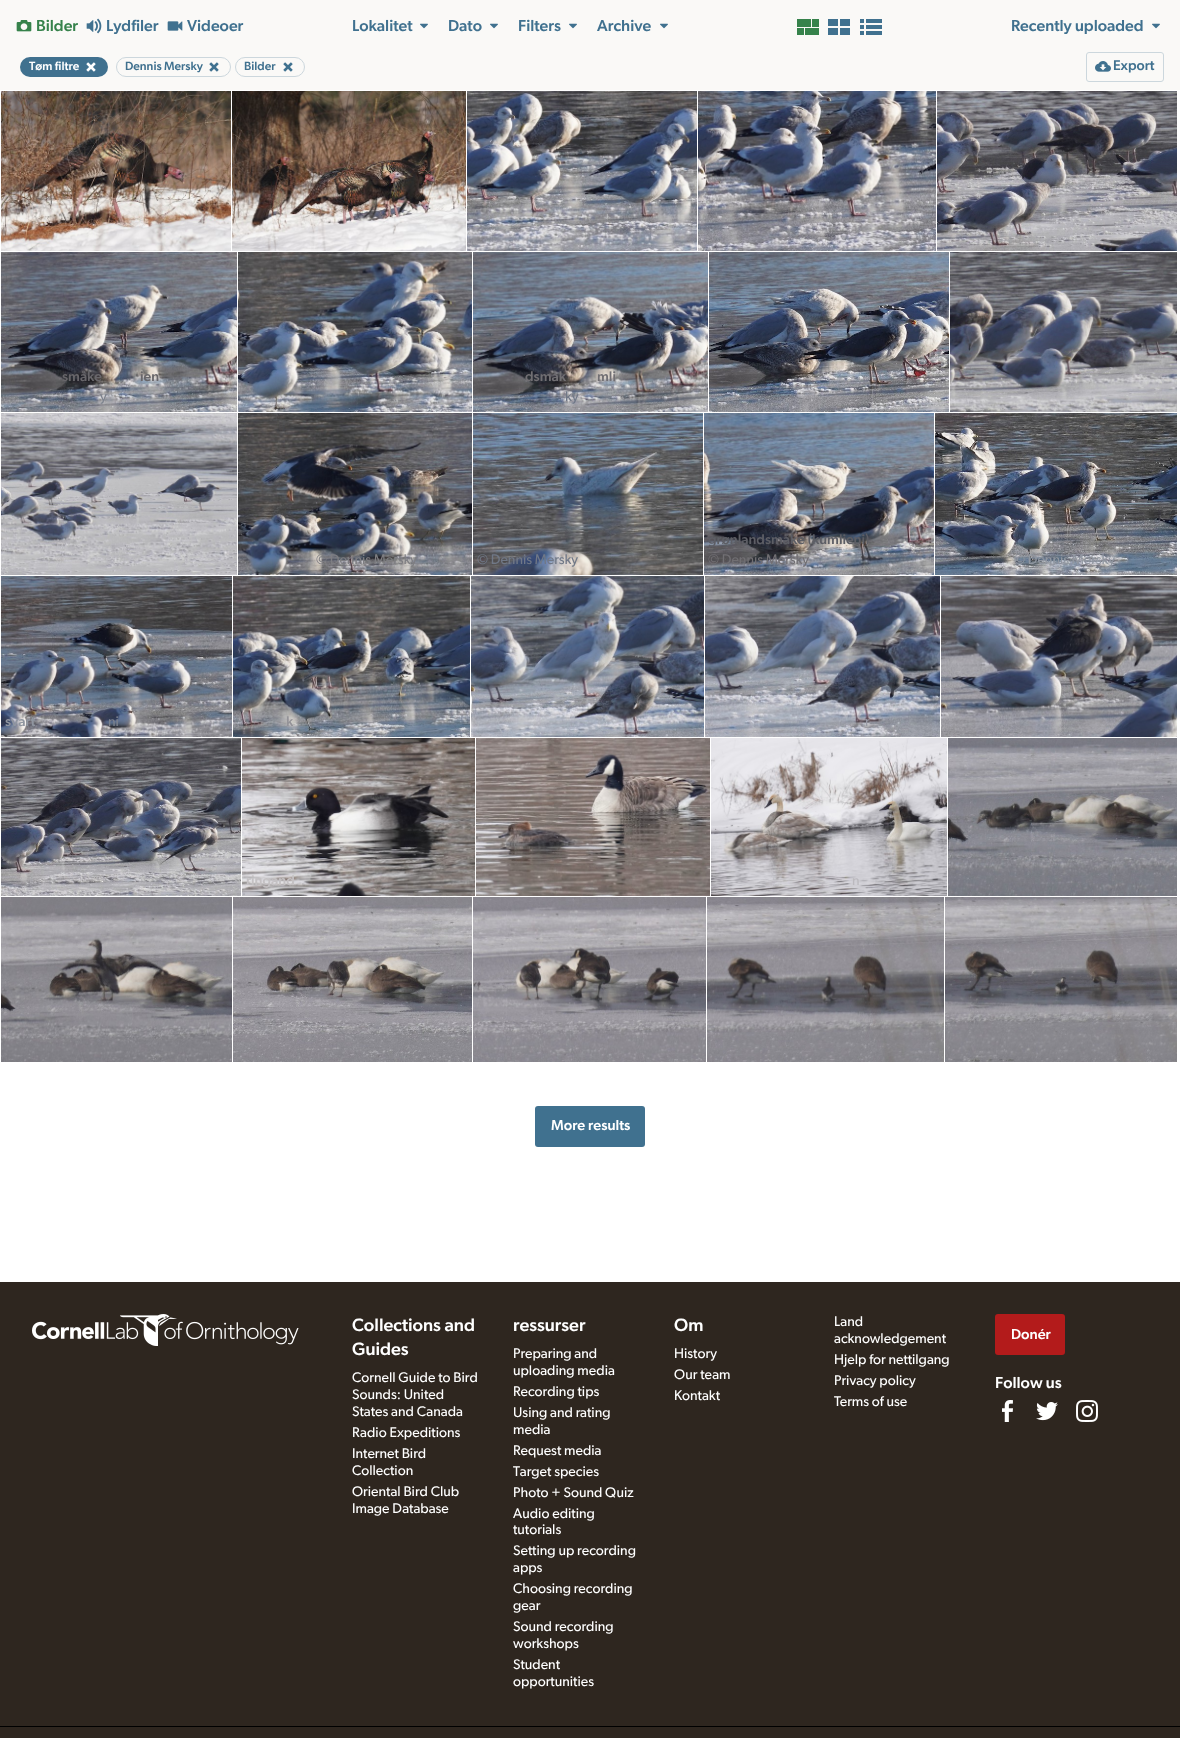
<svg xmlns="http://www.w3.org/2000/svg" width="1180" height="1738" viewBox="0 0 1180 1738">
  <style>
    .t1 { font: 500 16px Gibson; fill: #36824b; }
    .t2 { font: 500 16px Gibson; fill: #40718f; }
    .t3 { font: 500 12px Gibson; fill: #fff; }
    .t4 { font: 500 12px Gibson; fill: #40718f; }
    .t5 { font: 500 14px Gibson; fill: #40718f; }
    .t6 { font: 500 14px Gibson; fill: #68666a; }
    .t7 { font: 14px Gibson; fill: #7c828d; }
    .t8 { font: 500 14px Gibson; fill: #716f73; }
    .t9 { font: 14px Gibson; fill: #707887; }
    .t10 { font: 14px Gibson; fill: #7e7e82; }
    .t11 { font: 500 14px Gibson; fill: #5d5e65; }
    .t12 { font: 14px Gibson; fill: #716f73; }
    .t13 { font: 14px Gibson; fill: #9096a0; }
    .t14 { font: 500 14px Gibson; fill: #9096a0; }
    .t15 { font: 500 14px Gibson; fill: #949398; }
    .t16 { font: 14px Gibson; fill: #989aa5; }
    .t17 { font: 500 14px Gibson; fill: #c4c1c3; }
    .t18 { font: 14px Gibson; fill: #bbb9be; }
    .t19 { font: 500 14.5px Gibson; fill: #fff; }
    .t20 { font: 500 18px Gibson; fill: #fff; }
    .t21 { font: 14px Gibson; fill: #fff; }
    .t22 { font: 500 16px Gibson; fill: #fff; }
  </style>
  <rect width="100%" height="100%" fill="#fff"/>
  <rect x="0" y="0" width="1180" height="90" fill="#faf9f7"/>
  <image x="16" y="20" width="16" height="12" href="images/1.png"/>
  <text x="36" y="31" class="t1">Bilder</text>
  <image x="86" y="18" width="16" height="16" href="images/2.png"/>
  <text x="106" y="31" class="t2">Lydfiler</text>
  <image x="167" y="21" width="16" height="10" href="images/3.png"/>
  <text x="187" y="31" class="t2">Videoer</text>
  <text x="352" y="31" class="t2">Lokalitet</text>
  <image x="420" y="23" width="8" height="6" href="images/4.png"/>
  <text x="448" y="31" class="t2">Dato</text>
  <image x="490" y="23" width="8" height="6" href="images/4.png"/>
  <text x="518" y="31" class="t2">Filters</text>
  <image x="569" y="23" width="8" height="6" href="images/4.png"/>
  <text x="597" y="31" class="t2">Archive</text>
  <image x="660" y="23" width="8" height="6" href="images/4.png"/>
  <image x="797" y="19" width="22" height="16" href="images/5.png"/>
  <image x="828" y="19" width="22" height="16" href="images/6.png"/>
  <image x="860" y="19" width="22" height="16" href="images/7.png"/>
  <text x="1011" y="31" class="t2">Recently uploaded</text>
  <image x="1152" y="23" width="8" height="6" href="images/4.png"/>
  <rect x="20" y="57" width="88" height="20" rx="10" fill="#40718f"/>
  <text x="29" y="70" class="t3">Tøm filtre</text>
  <image x="86" y="62" width="10" height="10" href="images/8.png"/>
  <rect x="116.5" y="57.5" width="114" height="19" rx="9.5" fill="none" stroke="#ccd7dd"/>
  <text x="125" y="70" class="t4">Dennis Mersky</text>
  <image x="209" y="62" width="10" height="10" href="images/9.png"/>
  <rect x="235.5" y="57.5" width="69" height="19" rx="9.5" fill="none" stroke="#ccd7dd"/>
  <text x="244" y="70" class="t4">Bilder</text>
  <image x="283" y="62" width="10" height="10" href="images/9.png"/>
  <rect x="1086.5" y="52.5" width="77" height="29" rx="2.5" fill="none" stroke="#ccd7dd"/>
  <image x="1095" y="61" width="16" height="11" href="images/10.png"/>
  <text x="1113" y="70" class="t5">Export</text>
  <image x="1" y="91" width="230" height="160" href="images/11.png"/>
  <image x="232" y="91" width="234" height="160" href="images/12.png"/>
  <image x="467" y="91" width="230" height="160" href="images/13.png"/>
  <image x="698" y="91" width="238" height="160" href="images/14.png"/>
  <image x="937" y="91" width="240" height="160" href="images/15.png"/>
  <image x="1" y="252" width="236" height="160" href="images/16.png"/>
  <text x="62" y="381" class="t6">småke</text>
  <text x="140" y="381" class="t6">ien</text>
  <text x="100" y="401" class="t7">y</text>
  <image x="238" y="252" width="234" height="160" href="images/17.png"/>
  <image x="473" y="252" width="235" height="160" href="images/18.png"/>
  <text x="525" y="381" class="t8">dsmåk</text>
  <text x="597" y="381" class="t8">mli</text>
  <text x="565" y="401" class="t9">ky</text>
  <image x="709" y="252" width="240" height="160" href="images/19.png"/>
  <image x="950" y="252" width="227" height="160" href="images/20.png"/>
  <image x="1" y="413" width="236" height="162" href="images/21.png"/>
  <image x="238" y="413" width="234" height="162" href="images/22.png"/>
  <text x="316" y="564" class="t10">© Dennis Mersky</text>
  <image x="473" y="413" width="230" height="162" href="images/23.png"/>
  <text x="477" y="564" class="t9">© Dennis Mersky</text>
  <image x="704" y="413" width="230" height="162" href="images/24.png"/>
  <text x="708" y="544" class="t11">grønlandsmåke (kumlieni)</text>
  <text x="708" y="564" class="t12">© Dennis Mersky</text>
  <image x="935" y="413" width="242" height="162" href="images/25.png"/>
  <text x="1014" y="564" class="t13">© Dennis Mersky</text>
  <image x="1" y="576" width="231" height="161" href="images/26.png"/>
  <text x="5" y="726" class="t14">svart</text>
  <text x="108" y="726" class="t7">ni</text>
  <image x="233" y="576" width="237" height="161" href="images/27.png"/>
  <text x="286" y="726" class="t15">k</text>
  <image x="471" y="576" width="233" height="161" href="images/28.png"/>
  <image x="705" y="576" width="235" height="161" href="images/29.png"/>
  <text x="865" y="726" class="t16">r</text>
  <image x="941" y="576" width="236" height="161" href="images/30.png"/>
  <image x="1" y="738" width="240" height="158" href="images/31.png"/>
  <image x="242" y="738" width="233" height="158" href="images/32.png"/>
  <text x="246" y="885" class="t17">ringand</text>
  <image x="476" y="738" width="234" height="158" href="images/33.png"/>
  <image x="711" y="738" width="236" height="158" href="images/34.png"/>
  <text x="852" y="885" class="t18">n</text>
  <image x="948" y="738" width="229" height="158" href="images/35.png"/>
  <image x="1" y="897" width="231" height="165" href="images/36.png"/>
  <image x="233" y="897" width="239" height="165" href="images/37.png"/>
  <image x="473" y="897" width="233" height="165" href="images/38.png"/>
  <image x="707" y="897" width="237" height="165" href="images/39.png"/>
  <image x="945" y="897" width="232" height="165" href="images/40.png"/>
  <rect x="535" y="1106" width="110" height="41" rx="3" fill="#40718f"/>
  <text x="551" y="1130" class="t19">More results</text>
  <rect x="0" y="1282" width="1180" height="456" fill="#2e261f"/>
  <image x="32" y="1314" width="267" height="32" href="images/41.png"/>
  <text x="352" y="1331" class="t20">Collections and</text>
  <text x="352" y="1355" class="t20">Guides</text>
  <text x="352" y="1382" class="t21">Cornell Guide to Bird</text>
  <text x="352" y="1399" class="t21">Sounds: United</text>
  <text x="352" y="1416" class="t21">States and Canada</text>
  <text x="352" y="1437" class="t21">Radio Expeditions</text>
  <text x="352" y="1458" class="t21">Internet Bird</text>
  <text x="352" y="1475" class="t21">Collection</text>
  <text x="352" y="1496" class="t21">Oriental Bird Club</text>
  <text x="352" y="1513" class="t21">Image Database</text>
  <text x="513" y="1331" class="t20">ressurser</text>
  <text x="513" y="1358" class="t21">Preparing and</text>
  <text x="513" y="1375" class="t21">uploading media</text>
  <text x="513" y="1396" class="t21">Recording tips</text>
  <text x="513" y="1417" class="t21">Using and rating</text>
  <text x="513" y="1434" class="t21">media</text>
  <text x="513" y="1455" class="t21">Request media</text>
  <text x="513" y="1476" class="t21">Target species</text>
  <text x="513" y="1497" class="t21">Photo + Sound Quiz</text>
  <text x="513" y="1518" class="t21">Audio editing</text>
  <text x="513" y="1534" class="t21">tutorials</text>
  <text x="513" y="1555" class="t21">Setting up recording</text>
  <text x="513" y="1572" class="t21">apps</text>
  <text x="513" y="1593" class="t21">Choosing recording</text>
  <text x="513" y="1610" class="t21">gear</text>
  <text x="513" y="1631" class="t21">Sound recording</text>
  <text x="513" y="1648" class="t21">workshops</text>
  <text x="513" y="1669" class="t21">Student</text>
  <text x="513" y="1686" class="t21">opportunities</text>
  <text x="674" y="1331" class="t20">Om</text>
  <text x="674" y="1358" class="t21">History</text>
  <text x="674" y="1379" class="t21">Our team</text>
  <text x="674" y="1400" class="t21">Kontakt</text>
  <text x="834" y="1326" class="t21">Land</text>
  <text x="834" y="1343" class="t21">acknowledgement</text>
  <text x="834" y="1364" class="t21">Hjelp for nettilgang</text>
  <text x="834" y="1385" class="t21">Privacy policy</text>
  <text x="834" y="1406" class="t21">Terms of use</text>
  <rect x="995" y="1314" width="70" height="41" rx="3" fill="#b31b1b"/>
  <text x="1011" y="1339" class="t19">Donér</text>
  <text x="995" y="1388" class="t22">Follow us</text>
  <image x="1002" y="1400" width="11" height="22" href="images/42.png"/>
  <image x="1036" y="1402" width="22" height="19" href="images/43.png"/>
  <image x="1076" y="1400" width="22" height="22" href="images/44.png"/>
  <rect x="0" y="1726" width="1180" height="1" fill="#000"/>
</svg>
